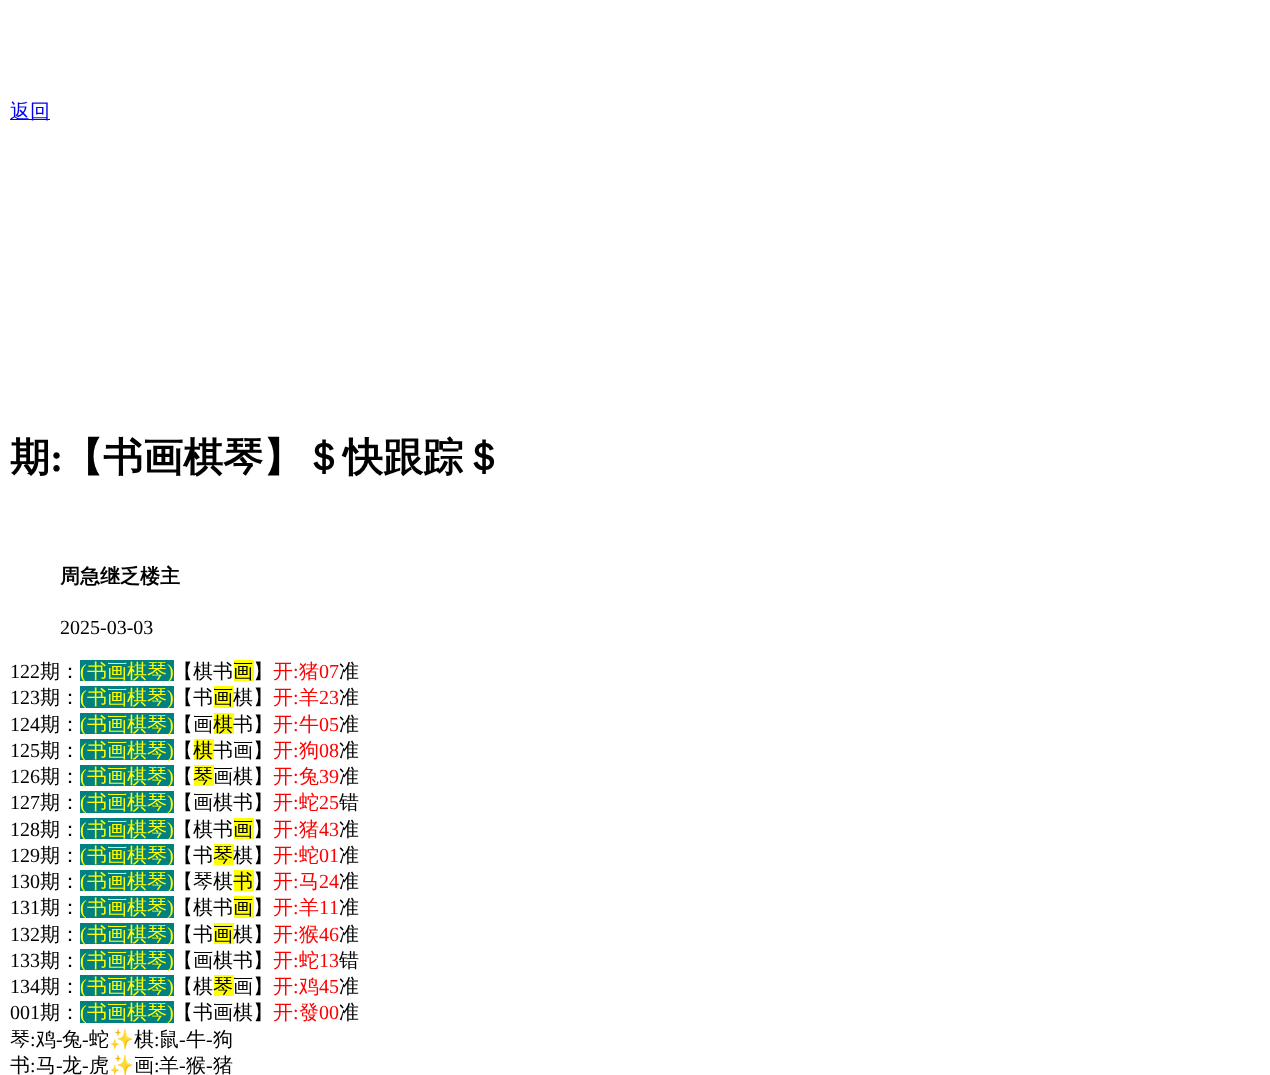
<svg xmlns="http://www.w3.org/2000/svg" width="1270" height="1075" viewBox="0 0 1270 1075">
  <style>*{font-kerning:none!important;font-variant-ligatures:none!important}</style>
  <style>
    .t1 { font: 500 20px WenQuanYi Zen Hei; fill: #00e; }
    .t2 { font: bold 40px WenQuanYi Zen Hei; fill: #000; }
    .t3 { font: bold 40px Liberation Serif; fill: #000; }
    .t4 { font: bold 20px WenQuanYi Zen Hei; fill: #000; }
    .t5 { font: 20px Liberation Serif; fill: #000; }
    .t6 { font: 500 20px WenQuanYi Zen Hei; fill: #000; }
    .t7 { font: 20px Liberation Serif; fill: #ff0; }
    .t8 { font: 500 20px WenQuanYi Zen Hei; fill: #ff0; }
    .t9 { font: 500 20px WenQuanYi Zen Hei; fill: #f00; }
    .t10 { font: 20px Liberation Serif; fill: #f00; }
    .t11 { font: 20px Noto Color Emoji; fill: #000; }
  </style>
  <rect width="100%" height="100%" fill="#fff"/>
  <rect x="10" y="119" width="40" height="1" fill="#00e"/>
  <text x="10" y="118" class="t1">返回</text>
  <text x="10" y="471" class="t2">期</text>
  <text x="50" y="471" class="t3">:</text>
  <text x="63" y="471" class="t2">【书画棋琴】＄快跟踪＄</text>
  <text x="60" y="583" class="t4">周急继乏楼主</text>
  <text x="60" y="634" class="t5">2025-03-03</text>
  <text x="10" y="678" class="t5">122</text>
  <text x="40" y="678" class="t6">期：</text>
  <rect x="80" y="660" width="94" height="21" fill="#008080"/>
  <text x="80" y="678" class="t7">(</text>
  <text x="87" y="678" class="t8">书画棋琴</text>
  <text x="167" y="678" class="t7">)</text>
  <text x="173" y="678" class="t6">【棋书</text>
  <rect x="234" y="660" width="20" height="21" fill="#ff0"/>
  <text x="233" y="678" class="t6">画】</text>
  <text x="273" y="678" class="t9">开</text>
  <text x="293" y="678" class="t10">:</text>
  <text x="299" y="678" class="t9">猪</text>
  <text x="319" y="678" class="t10">07</text>
  <text x="339" y="678" class="t6">准</text>
  <text x="10" y="704" class="t5">123</text>
  <text x="40" y="704" class="t6">期：</text>
  <rect x="80" y="686" width="94" height="22" fill="#008080"/>
  <text x="80" y="704" class="t7">(</text>
  <text x="87" y="704" class="t8">书画棋琴</text>
  <text x="167" y="704" class="t7">)</text>
  <text x="173" y="704" class="t6">【书</text>
  <rect x="214" y="686" width="20" height="22" fill="#ff0"/>
  <text x="213" y="704" class="t6">画棋】</text>
  <text x="273" y="704" class="t9">开</text>
  <text x="293" y="704" class="t10">:</text>
  <text x="299" y="704" class="t9">羊</text>
  <text x="319" y="704" class="t10">23</text>
  <text x="339" y="704" class="t6">准</text>
  <text x="10" y="731" class="t5">124</text>
  <text x="40" y="731" class="t6">期：</text>
  <rect x="80" y="713" width="94" height="21" fill="#008080"/>
  <text x="80" y="731" class="t7">(</text>
  <text x="87" y="731" class="t8">书画棋琴</text>
  <text x="167" y="731" class="t7">)</text>
  <text x="173" y="731" class="t6">【画</text>
  <rect x="214" y="713" width="20" height="21" fill="#ff0"/>
  <text x="213" y="731" class="t6">棋书】</text>
  <text x="273" y="731" class="t9">开</text>
  <text x="293" y="731" class="t10">:</text>
  <text x="299" y="731" class="t9">牛</text>
  <text x="319" y="731" class="t10">05</text>
  <text x="339" y="731" class="t6">准</text>
  <text x="10" y="757" class="t5">125</text>
  <text x="40" y="757" class="t6">期：</text>
  <rect x="80" y="739" width="94" height="21" fill="#008080"/>
  <text x="80" y="757" class="t7">(</text>
  <text x="87" y="757" class="t8">书画棋琴</text>
  <text x="167" y="757" class="t7">)</text>
  <text x="173" y="757" class="t6">【</text>
  <rect x="194" y="739" width="20" height="21" fill="#ff0"/>
  <text x="193" y="757" class="t6">棋书画】</text>
  <text x="273" y="757" class="t9">开</text>
  <text x="293" y="757" class="t10">:</text>
  <text x="299" y="757" class="t9">狗</text>
  <text x="319" y="757" class="t10">08</text>
  <text x="339" y="757" class="t6">准</text>
  <text x="10" y="783" class="t5">126</text>
  <text x="40" y="783" class="t6">期：</text>
  <rect x="80" y="765" width="94" height="21" fill="#008080"/>
  <text x="80" y="783" class="t7">(</text>
  <text x="87" y="783" class="t8">书画棋琴</text>
  <text x="167" y="783" class="t7">)</text>
  <text x="173" y="783" class="t6">【</text>
  <rect x="194" y="765" width="20" height="21" fill="#ff0"/>
  <text x="193" y="783" class="t6">琴画棋】</text>
  <text x="273" y="783" class="t9">开</text>
  <text x="293" y="783" class="t10">:</text>
  <text x="299" y="783" class="t9">兔</text>
  <text x="319" y="783" class="t10">39</text>
  <text x="339" y="783" class="t6">准</text>
  <text x="10" y="809" class="t5">127</text>
  <text x="40" y="809" class="t6">期：</text>
  <rect x="80" y="791" width="94" height="22" fill="#008080"/>
  <text x="80" y="809" class="t7">(</text>
  <text x="87" y="809" class="t8">书画棋琴</text>
  <text x="167" y="809" class="t7">)</text>
  <text x="173" y="809" class="t6">【画棋书】</text>
  <text x="273" y="809" class="t9">开</text>
  <text x="293" y="809" class="t10">:</text>
  <text x="299" y="809" class="t9">蛇</text>
  <text x="319" y="809" class="t10">25</text>
  <text x="339" y="809" class="t6">错</text>
  <text x="10" y="836" class="t5">128</text>
  <text x="40" y="836" class="t6">期：</text>
  <rect x="80" y="818" width="94" height="21" fill="#008080"/>
  <text x="80" y="836" class="t7">(</text>
  <text x="87" y="836" class="t8">书画棋琴</text>
  <text x="167" y="836" class="t7">)</text>
  <text x="173" y="836" class="t6">【棋书</text>
  <rect x="234" y="818" width="20" height="21" fill="#ff0"/>
  <text x="233" y="836" class="t6">画】</text>
  <text x="273" y="836" class="t9">开</text>
  <text x="293" y="836" class="t10">:</text>
  <text x="299" y="836" class="t9">猪</text>
  <text x="319" y="836" class="t10">43</text>
  <text x="339" y="836" class="t6">准</text>
  <text x="10" y="862" class="t5">129</text>
  <text x="40" y="862" class="t6">期：</text>
  <rect x="80" y="844" width="94" height="21" fill="#008080"/>
  <text x="80" y="862" class="t7">(</text>
  <text x="87" y="862" class="t8">书画棋琴</text>
  <text x="167" y="862" class="t7">)</text>
  <text x="173" y="862" class="t6">【书</text>
  <rect x="214" y="844" width="20" height="21" fill="#ff0"/>
  <text x="213" y="862" class="t6">琴棋】</text>
  <text x="273" y="862" class="t9">开</text>
  <text x="293" y="862" class="t10">:</text>
  <text x="299" y="862" class="t9">蛇</text>
  <text x="319" y="862" class="t10">01</text>
  <text x="339" y="862" class="t6">准</text>
  <text x="10" y="888" class="t5">130</text>
  <text x="40" y="888" class="t6">期：</text>
  <rect x="80" y="870" width="94" height="21" fill="#008080"/>
  <text x="80" y="888" class="t7">(</text>
  <text x="87" y="888" class="t8">书画棋琴</text>
  <text x="167" y="888" class="t7">)</text>
  <text x="173" y="888" class="t6">【琴棋</text>
  <rect x="234" y="870" width="20" height="21" fill="#ff0"/>
  <text x="233" y="888" class="t6">书】</text>
  <text x="273" y="888" class="t9">开</text>
  <text x="293" y="888" class="t10">:</text>
  <text x="299" y="888" class="t9">马</text>
  <text x="319" y="888" class="t10">24</text>
  <text x="339" y="888" class="t6">准</text>
  <text x="10" y="914" class="t5">131</text>
  <text x="40" y="914" class="t6">期：</text>
  <rect x="80" y="896" width="94" height="22" fill="#008080"/>
  <text x="80" y="914" class="t7">(</text>
  <text x="87" y="914" class="t8">书画棋琴</text>
  <text x="167" y="914" class="t7">)</text>
  <text x="173" y="914" class="t6">【棋书</text>
  <rect x="234" y="896" width="20" height="22" fill="#ff0"/>
  <text x="233" y="914" class="t6">画】</text>
  <text x="273" y="914" class="t9">开</text>
  <text x="293" y="914" class="t10">:</text>
  <text x="299" y="914" class="t9">羊</text>
  <text x="319" y="914" class="t10">11</text>
  <text x="339" y="914" class="t6">准</text>
  <text x="10" y="941" class="t5">132</text>
  <text x="40" y="941" class="t6">期：</text>
  <rect x="80" y="923" width="94" height="21" fill="#008080"/>
  <text x="80" y="941" class="t7">(</text>
  <text x="87" y="941" class="t8">书画棋琴</text>
  <text x="167" y="941" class="t7">)</text>
  <text x="173" y="941" class="t6">【书</text>
  <rect x="214" y="923" width="20" height="21" fill="#ff0"/>
  <text x="213" y="941" class="t6">画棋】</text>
  <text x="273" y="941" class="t9">开</text>
  <text x="293" y="941" class="t10">:</text>
  <text x="299" y="941" class="t9">猴</text>
  <text x="319" y="941" class="t10">46</text>
  <text x="339" y="941" class="t6">准</text>
  <text x="10" y="967" class="t5">133</text>
  <text x="40" y="967" class="t6">期：</text>
  <rect x="80" y="949" width="94" height="21" fill="#008080"/>
  <text x="80" y="967" class="t7">(</text>
  <text x="87" y="967" class="t8">书画棋琴</text>
  <text x="167" y="967" class="t7">)</text>
  <text x="173" y="967" class="t6">【画棋书】</text>
  <text x="273" y="967" class="t9">开</text>
  <text x="293" y="967" class="t10">:</text>
  <text x="299" y="967" class="t9">蛇</text>
  <text x="319" y="967" class="t10">13</text>
  <text x="339" y="967" class="t6">错</text>
  <text x="10" y="993" class="t5">134</text>
  <text x="40" y="993" class="t6">期：</text>
  <rect x="80" y="975" width="94" height="21" fill="#008080"/>
  <text x="80" y="993" class="t7">(</text>
  <text x="87" y="993" class="t8">书画棋琴</text>
  <text x="167" y="993" class="t7">)</text>
  <text x="173" y="993" class="t6">【棋</text>
  <rect x="214" y="975" width="20" height="21" fill="#ff0"/>
  <text x="213" y="993" class="t6">琴画】</text>
  <text x="273" y="993" class="t9">开</text>
  <text x="293" y="993" class="t10">:</text>
  <text x="299" y="993" class="t9">鸡</text>
  <text x="319" y="993" class="t10">45</text>
  <text x="339" y="993" class="t6">准</text>
  <text x="10" y="1019" class="t5">001</text>
  <text x="40" y="1019" class="t6">期：</text>
  <rect x="80" y="1001" width="94" height="22" fill="#008080"/>
  <text x="80" y="1019" class="t7">(</text>
  <text x="87" y="1019" class="t8">书画棋琴</text>
  <text x="167" y="1019" class="t7">)</text>
  <text x="173" y="1019" class="t6">【书画棋】</text>
  <text x="273" y="1019" class="t9">开</text>
  <text x="293" y="1019" class="t10">:</text>
  <text x="299" y="1019" class="t9">發</text>
  <text x="319" y="1019" class="t10">00</text>
  <text x="339" y="1019" class="t6">准</text>
  <text x="10" y="1046" class="t6">琴</text>
  <text x="30" y="1046" class="t5">:</text>
  <text x="36" y="1046" class="t6">鸡</text>
  <text x="56" y="1046" class="t5">-</text>
  <text x="62" y="1046" class="t6">兔</text>
  <text x="82" y="1046" class="t5">-</text>
  <text x="89" y="1046" class="t6">蛇</text>
  <text x="109" y="1046" class="t11">✨</text>
  <text x="134" y="1046" class="t6">棋</text>
  <text x="154" y="1046" class="t5">:</text>
  <text x="159" y="1046" class="t6">鼠</text>
  <text x="179" y="1046" class="t5">-</text>
  <text x="186" y="1046" class="t6">牛</text>
  <text x="206" y="1046" class="t5">-</text>
  <text x="213" y="1046" class="t6">狗</text>
  <text x="10" y="1072" class="t6">书</text>
  <text x="30" y="1072" class="t5">:</text>
  <text x="36" y="1072" class="t6">马</text>
  <text x="56" y="1072" class="t5">-</text>
  <text x="62" y="1072" class="t6">龙</text>
  <text x="82" y="1072" class="t5">-</text>
  <text x="89" y="1072" class="t6">虎</text>
  <text x="109" y="1072" class="t11">✨</text>
  <text x="134" y="1072" class="t6">画</text>
  <text x="154" y="1072" class="t5">:</text>
  <text x="159" y="1072" class="t6">羊</text>
  <text x="179" y="1072" class="t5">-</text>
  <text x="186" y="1072" class="t6">猴</text>
  <text x="206" y="1072" class="t5">-</text>
  <text x="213" y="1072" class="t6">猪</text>
</svg>
